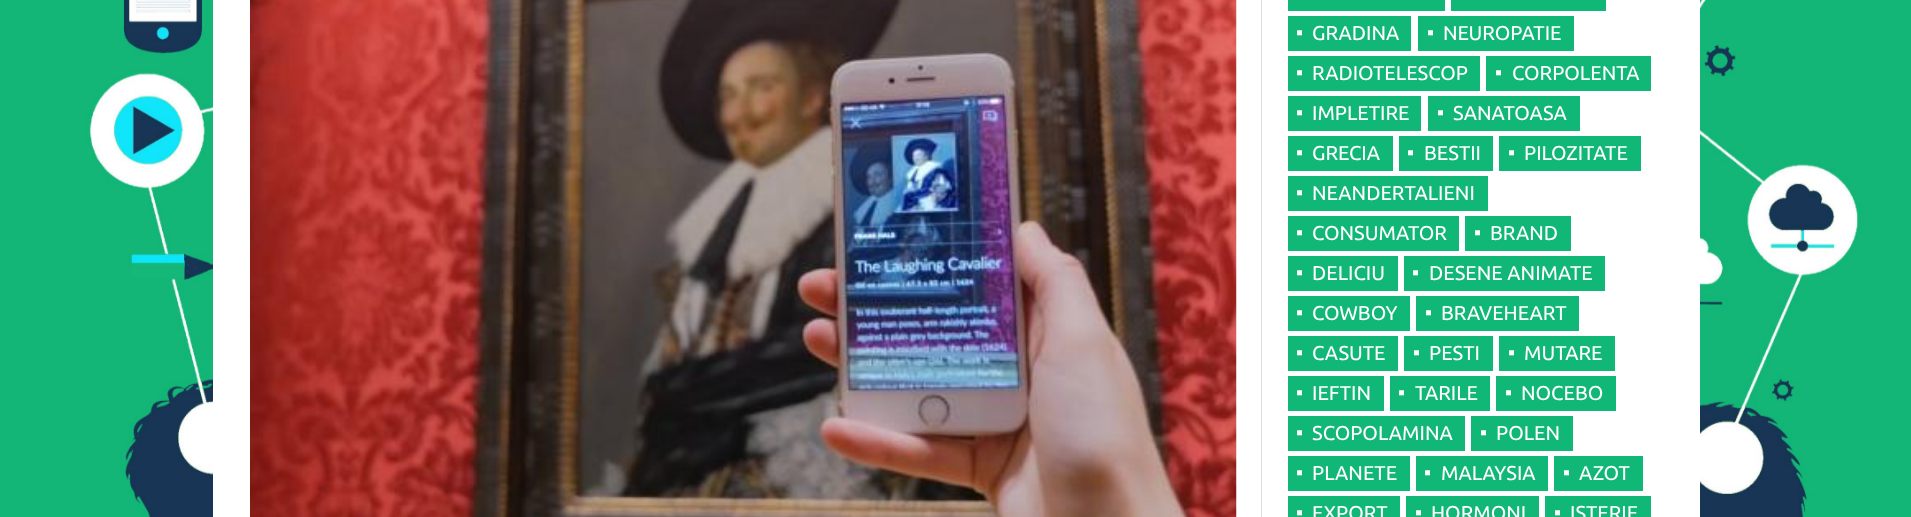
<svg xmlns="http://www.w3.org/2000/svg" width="1911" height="517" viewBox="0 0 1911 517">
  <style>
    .t1 { font: 20px Liberation Sans; fill: #fff; }
    .t2 { font: 20px Ubuntu; fill: #fff; }
  </style>
  <rect width="100%" height="100%" fill="#fff"/>
  <image x="0" y="0" width="1911" height="517" href="images/1.png"/>
  <rect x="213" y="0" width="1487" height="517" fill="#fff"/>
  <image x="250" y="0" width="987" height="517" href="images/2.png"/>
  <rect x="1261" y="0" width="1" height="517" fill="#ddd"/>
  <rect x="1288" y="0" width="157" height="11" fill="#11b777"/>
  <rect x="1451" y="0" width="155" height="11" fill="#11b777"/>
  <rect x="1288" y="16" width="123" height="35" fill="#11b777"/>
  <text x="1296" y="39" class="t1">▪</text>
  <text x="1312" y="40" class="t2">GRADINA</text>
  <rect x="1418" y="16" width="156" height="35" fill="#11b777"/>
  <text x="1427" y="39" class="t1">▪</text>
  <text x="1443" y="40" class="t2">NEUROPATIE</text>
  <rect x="1288" y="56" width="192" height="35" fill="#11b777"/>
  <text x="1296" y="79" class="t1">▪</text>
  <text x="1312" y="80" class="t2">RADIOTELESCOP</text>
  <rect x="1486" y="56" width="165" height="35" fill="#11b777"/>
  <text x="1495" y="79" class="t1">▪</text>
  <text x="1512" y="80" class="t2">CORPOLENTA</text>
  <rect x="1288" y="96" width="133" height="35" fill="#11b777"/>
  <text x="1296" y="119" class="t1">▪</text>
  <text x="1312" y="120" class="t2">IMPLETIRE</text>
  <rect x="1428" y="96" width="152" height="35" fill="#11b777"/>
  <text x="1437" y="119" class="t1">▪</text>
  <text x="1453" y="120" class="t2">SANATOASA</text>
  <rect x="1288" y="136" width="105" height="35" fill="#11b777"/>
  <text x="1296" y="159" class="t1">▪</text>
  <text x="1312" y="160" class="t2">GRECIA</text>
  <rect x="1399" y="136" width="94" height="35" fill="#11b777"/>
  <text x="1407" y="159" class="t1">▪</text>
  <text x="1424" y="160" class="t2">BESTII</text>
  <rect x="1499" y="136" width="142" height="35" fill="#11b777"/>
  <text x="1508" y="159" class="t1">▪</text>
  <text x="1524" y="160" class="t2">PILOZITATE</text>
  <rect x="1288" y="176" width="200" height="35" fill="#11b777"/>
  <text x="1296" y="199" class="t1">▪</text>
  <text x="1312" y="200" class="t2">NEANDERTALIENI</text>
  <rect x="1288" y="216" width="171" height="35" fill="#11b777"/>
  <text x="1296" y="239" class="t1">▪</text>
  <text x="1312" y="240" class="t2">CONSUMATOR</text>
  <rect x="1465" y="216" width="106" height="35" fill="#11b777"/>
  <text x="1474" y="239" class="t1">▪</text>
  <text x="1490" y="240" class="t2">BRAND</text>
  <rect x="1288" y="256" width="110" height="35" fill="#11b777"/>
  <text x="1296" y="279" class="t1">▪</text>
  <text x="1312" y="280" class="t2">DELICIU</text>
  <rect x="1404" y="256" width="201" height="35" fill="#11b777"/>
  <text x="1412" y="279" class="t1">▪</text>
  <text x="1429" y="280" class="t2">DESENE ANIMATE</text>
  <rect x="1288" y="296" width="122" height="35" fill="#11b777"/>
  <text x="1296" y="319" class="t1">▪</text>
  <text x="1312" y="320" class="t2">COWBOY</text>
  <rect x="1416" y="296" width="163" height="35" fill="#11b777"/>
  <text x="1425" y="319" class="t1">▪</text>
  <text x="1441" y="320" class="t2">BRAVEHEART</text>
  <rect x="1288" y="336" width="110" height="35" fill="#11b777"/>
  <text x="1296" y="359" class="t1">▪</text>
  <text x="1312" y="360" class="t2">CASUTE</text>
  <rect x="1404" y="336" width="89" height="35" fill="#11b777"/>
  <text x="1413" y="359" class="t1">▪</text>
  <text x="1429" y="360" class="t2">PESTI</text>
  <rect x="1499" y="336" width="116" height="35" fill="#11b777"/>
  <text x="1508" y="359" class="t1">▪</text>
  <text x="1524" y="360" class="t2">MUTARE</text>
  <rect x="1288" y="376" width="96" height="35" fill="#11b777"/>
  <text x="1296" y="399" class="t1">▪</text>
  <text x="1312" y="400" class="t2">IEFTIN</text>
  <rect x="1390" y="376" width="100" height="35" fill="#11b777"/>
  <text x="1398" y="399" class="t1">▪</text>
  <text x="1415" y="400" class="t2">TARILE</text>
  <rect x="1496" y="376" width="120" height="35" fill="#11b777"/>
  <text x="1505" y="399" class="t1">▪</text>
  <text x="1521" y="400" class="t2">NOCEBO</text>
  <rect x="1288" y="416" width="177" height="35" fill="#11b777"/>
  <text x="1296" y="439" class="t1">▪</text>
  <text x="1312" y="440" class="t2">SCOPOLAMINA</text>
  <rect x="1471" y="416" width="102" height="35" fill="#11b777"/>
  <text x="1480" y="439" class="t1">▪</text>
  <text x="1496" y="440" class="t2">POLEN</text>
  <rect x="1288" y="456" width="122" height="35" fill="#11b777"/>
  <text x="1296" y="479" class="t1">▪</text>
  <text x="1312" y="480" class="t2">PLANETE</text>
  <rect x="1416" y="456" width="132" height="35" fill="#11b777"/>
  <text x="1424" y="479" class="t1">▪</text>
  <text x="1441" y="480" class="t2">MALAYSIA</text>
  <rect x="1554" y="456" width="89" height="35" fill="#11b777"/>
  <text x="1563" y="479" class="t1">▪</text>
  <text x="1579" y="480" class="t2">AZOT</text>
  <rect x="1288" y="496" width="112" height="21" fill="#11b777"/>
  <text x="1296" y="519" class="t1">▪</text>
  <text x="1312" y="520" class="t2">EXPORT</text>
  <rect x="1406" y="496" width="133" height="21" fill="#11b777"/>
  <text x="1415" y="519" class="t1">▪</text>
  <text x="1431" y="520" class="t2">HORMONI</text>
  <rect x="1545" y="496" width="106" height="21" fill="#11b777"/>
  <text x="1554" y="519" class="t1">▪</text>
  <text x="1570" y="520" class="t2">ISTERIE</text>
</svg>
